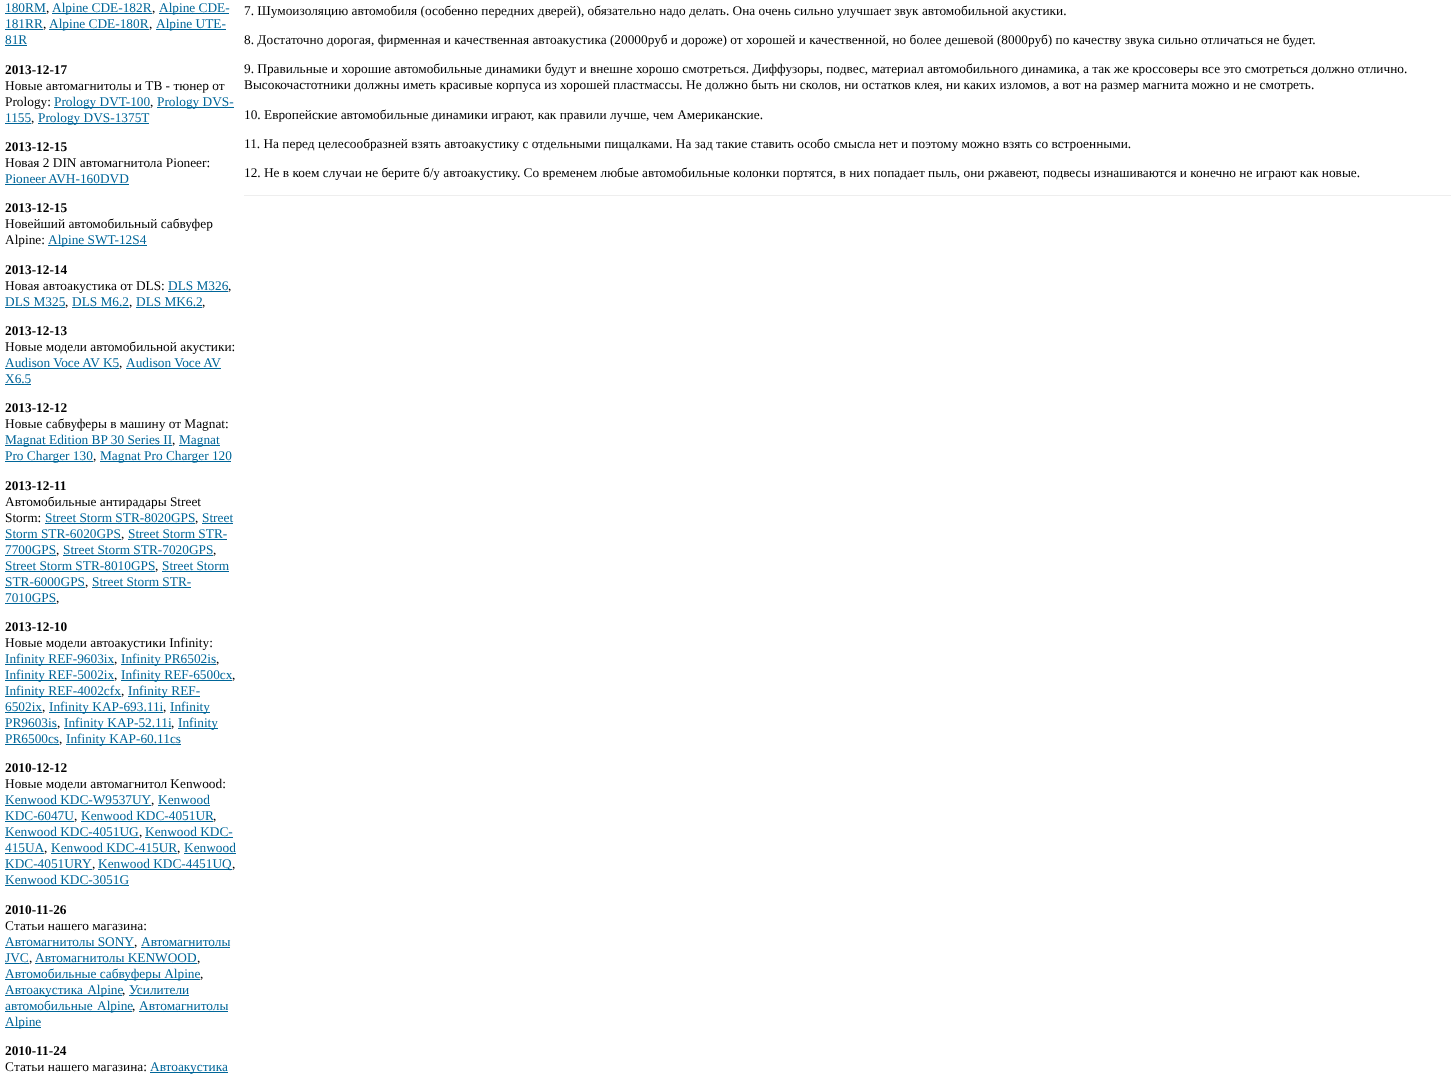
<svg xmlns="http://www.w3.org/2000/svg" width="1451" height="1082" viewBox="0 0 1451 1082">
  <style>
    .t1 { font: 13.33px Liberation Serif; fill: #069; }
    .t2 { font: 13.33px Liberation Serif; fill: #000; }
    .t3 { font: bold 13.33px Liberation Serif; fill: #000; }
  </style>
  <rect width="100%" height="100%" fill="#fff"/>
  <text x="5" y="12" class="t1">180RM</text>
  <rect x="5" y="13" width="41" height="1" fill="#069"/>
  <text x="46" y="12" class="t2">,</text>
  <rect x="52" y="13" width="100" height="1" fill="#069"/>
  <text x="52" y="12" class="t1">Alpine CDE-182R</text>
  <text x="152" y="12" class="t2">,</text>
  <rect x="159" y="13" width="70" height="1" fill="#069"/>
  <text x="159" y="12" class="t1">Alpine CDE-</text>
  <text x="5" y="28" class="t1">181RR</text>
  <rect x="5" y="29" width="38" height="1" fill="#069"/>
  <text x="43" y="28" class="t2">,</text>
  <rect x="49" y="29" width="100" height="1" fill="#069"/>
  <text x="49" y="28" class="t1">Alpine CDE-180R</text>
  <text x="149" y="28" class="t2">,</text>
  <rect x="156" y="29" width="70" height="1" fill="#069"/>
  <text x="156" y="28" class="t1">Alpine UTE-</text>
  <text x="5" y="44" class="t1">81R</text>
  <rect x="5" y="45" width="22" height="1" fill="#069"/>
  <text x="5" y="74" class="t3">2013-12-17</text>
  <text x="5" y="90" class="t2">Новые автомагнитолы и ТВ - тюнер от</text>
  <text x="5" y="106" class="t2">Prology:</text>
  <rect x="54" y="107" width="96" height="1" fill="#069"/>
  <text x="54" y="106" class="t1">Prology DVT-100</text>
  <text x="150" y="106" class="t2">,</text>
  <rect x="157" y="107" width="77" height="1" fill="#069"/>
  <text x="157" y="106" class="t1">Prology DVS-</text>
  <text x="5" y="122" class="t1">1155</text>
  <rect x="5" y="123" width="26" height="1" fill="#069"/>
  <text x="31" y="122" class="t2">,</text>
  <rect x="38" y="123" width="111" height="1" fill="#069"/>
  <text x="38" y="122" class="t1">Prology DVS-1375T</text>
  <text x="5" y="151" class="t3">2013-12-15</text>
  <text x="5" y="167" class="t2">Новая 2 DIN автомагнитола Pioneer:</text>
  <text x="5" y="183" class="t1">Pioneer AVH-160DVD</text>
  <rect x="5" y="184" width="124" height="1" fill="#069"/>
  <text x="5" y="212" class="t3">2013-12-15</text>
  <text x="5" y="228" class="t2">Новейший автомобильный сабвуфер</text>
  <text x="5" y="244" class="t2">Alpine:</text>
  <rect x="48" y="245" width="99" height="1" fill="#069"/>
  <text x="48" y="244" class="t1">Alpine SWT-12S4</text>
  <text x="5" y="274" class="t3">2013-12-14</text>
  <text x="5" y="290" class="t2">Новая автоакустика от DLS:</text>
  <text x="168" y="290" class="t1">DLS M326</text>
  <rect x="168" y="291" width="60" height="1" fill="#069"/>
  <text x="228" y="290" class="t2">,</text>
  <text x="5" y="306" class="t1">DLS M325</text>
  <rect x="5" y="307" width="60" height="1" fill="#069"/>
  <text x="65" y="306" class="t2">,</text>
  <text x="72" y="306" class="t1">DLS M6.2</text>
  <rect x="72" y="307" width="57" height="1" fill="#069"/>
  <text x="129" y="306" class="t2">,</text>
  <text x="136" y="306" class="t1">DLS MK6.2</text>
  <rect x="136" y="307" width="66" height="1" fill="#069"/>
  <text x="202" y="306" class="t2">,</text>
  <text x="5" y="335" class="t3">2013-12-13</text>
  <text x="5" y="351" class="t2">Новые модели автомобильной акустики:</text>
  <text x="5" y="367" class="t1">Audison Voce AV K5</text>
  <rect x="5" y="368" width="114" height="1" fill="#069"/>
  <text x="119" y="367" class="t2">,</text>
  <text x="126" y="367" class="t1">Audison Voce AV</text>
  <rect x="126" y="368" width="95" height="1" fill="#069"/>
  <text x="5" y="383" class="t1">X6.5</text>
  <rect x="5" y="384" width="26" height="1" fill="#069"/>
  <text x="5" y="412" class="t3">2013-12-12</text>
  <text x="5" y="428" class="t2">Новые сабвуферы в машину от Magnat:</text>
  <rect x="5" y="445" width="167" height="1" fill="#069"/>
  <text x="5" y="444" class="t1">Magnat Edition BP 30 Series II</text>
  <text x="172" y="444" class="t2">,</text>
  <rect x="179" y="445" width="41" height="1" fill="#069"/>
  <text x="179" y="444" class="t1">Magnat</text>
  <rect x="5" y="461" width="88" height="1" fill="#069"/>
  <text x="5" y="460" class="t1">Pro Charger 130</text>
  <text x="93" y="460" class="t2">,</text>
  <rect x="100" y="461" width="131" height="1" fill="#069"/>
  <text x="100" y="460" class="t1">Magnat Pro Charger 120</text>
  <text x="5" y="490" class="t3">2013-12-11</text>
  <text x="5" y="506" class="t2">Автомобильные антирадары Street</text>
  <text x="5" y="522" class="t2">Storm:</text>
  <text x="45" y="522" class="t1">Street Storm STR-8020GPS</text>
  <rect x="45" y="523" width="150" height="1" fill="#069"/>
  <text x="195" y="522" class="t2">,</text>
  <text x="202" y="522" class="t1">Street</text>
  <rect x="202" y="523" width="31" height="1" fill="#069"/>
  <text x="5" y="538" class="t1">Storm STR-6020GPS</text>
  <rect x="5" y="539" width="116" height="1" fill="#069"/>
  <text x="121" y="538" class="t2">,</text>
  <text x="128" y="538" class="t1">Street Storm STR-</text>
  <rect x="128" y="539" width="99" height="1" fill="#069"/>
  <text x="5" y="554" class="t1">7700GPS</text>
  <rect x="5" y="555" width="51" height="1" fill="#069"/>
  <text x="56" y="554" class="t2">,</text>
  <text x="63" y="554" class="t1">Street Storm STR-7020GPS</text>
  <rect x="63" y="555" width="150" height="1" fill="#069"/>
  <text x="213" y="554" class="t2">,</text>
  <text x="5" y="570" class="t1">Street Storm STR-8010GPS</text>
  <rect x="5" y="571" width="150" height="1" fill="#069"/>
  <text x="155" y="570" class="t2">,</text>
  <text x="162" y="570" class="t1">Street Storm</text>
  <rect x="162" y="571" width="67" height="1" fill="#069"/>
  <text x="5" y="586" class="t1">STR-6000GPS</text>
  <rect x="5" y="587" width="80" height="1" fill="#069"/>
  <text x="85" y="586" class="t2">,</text>
  <text x="92" y="586" class="t1">Street Storm STR-</text>
  <rect x="92" y="587" width="99" height="1" fill="#069"/>
  <text x="5" y="602" class="t1">7010GPS</text>
  <rect x="5" y="603" width="51" height="1" fill="#069"/>
  <text x="56" y="602" class="t2">,</text>
  <text x="5" y="631" class="t3">2013-12-10</text>
  <text x="5" y="647" class="t2">Новые модели автоакустики Infinity:</text>
  <rect x="5" y="664" width="109" height="1" fill="#069"/>
  <text x="5" y="663" class="t1">Infinity REF-9603ix</text>
  <text x="114" y="663" class="t2">,</text>
  <rect x="121" y="664" width="95" height="1" fill="#069"/>
  <text x="121" y="663" class="t1">Infinity PR6502is</text>
  <text x="216" y="663" class="t2">,</text>
  <rect x="5" y="680" width="109" height="1" fill="#069"/>
  <text x="5" y="679" class="t1">Infinity REF-5002ix</text>
  <text x="114" y="679" class="t2">,</text>
  <rect x="121" y="680" width="111" height="1" fill="#069"/>
  <text x="121" y="679" class="t1">Infinity REF-6500cx</text>
  <text x="232" y="679" class="t2">,</text>
  <rect x="5" y="696" width="116" height="1" fill="#069"/>
  <text x="5" y="695" class="t1">Infinity REF-4002cfx</text>
  <text x="121" y="695" class="t2">,</text>
  <rect x="128" y="696" width="72" height="1" fill="#069"/>
  <text x="128" y="695" class="t1">Infinity REF-</text>
  <text x="5" y="711" class="t1">6502ix</text>
  <rect x="5" y="712" width="37" height="1" fill="#069"/>
  <text x="42" y="711" class="t2">,</text>
  <rect x="49" y="712" width="114" height="1" fill="#069"/>
  <text x="49" y="711" class="t1">Infinity KAP-693.11i</text>
  <text x="163" y="711" class="t2">,</text>
  <rect x="170" y="712" width="40" height="1" fill="#069"/>
  <text x="170" y="711" class="t1">Infinity</text>
  <text x="5" y="727" class="t1">PR9603is</text>
  <rect x="5" y="728" width="52" height="1" fill="#069"/>
  <text x="57" y="727" class="t2">,</text>
  <rect x="64" y="728" width="107" height="1" fill="#069"/>
  <text x="64" y="727" class="t1">Infinity KAP-52.11i</text>
  <text x="171" y="727" class="t2">,</text>
  <rect x="178" y="728" width="40" height="1" fill="#069"/>
  <text x="178" y="727" class="t1">Infinity</text>
  <text x="5" y="743" class="t1">PR6500cs</text>
  <rect x="5" y="744" width="54" height="1" fill="#069"/>
  <text x="59" y="743" class="t2">,</text>
  <rect x="66" y="744" width="115" height="1" fill="#069"/>
  <text x="66" y="743" class="t1">Infinity KAP-60.11cs</text>
  <text x="5" y="772" class="t3">2010-12-12</text>
  <text x="5" y="788" class="t2">Новые модели автомагнитол Kenwood:</text>
  <text x="5" y="804" class="t1">Kenwood KDC-W9537UY</text>
  <rect x="5" y="805" width="146" height="1" fill="#069"/>
  <text x="151" y="804" class="t2">,</text>
  <text x="158" y="804" class="t1">Kenwood</text>
  <rect x="158" y="805" width="52" height="1" fill="#069"/>
  <text x="5" y="820" class="t1">KDC-6047U</text>
  <rect x="5" y="821" width="69" height="1" fill="#069"/>
  <text x="74" y="820" class="t2">,</text>
  <text x="81" y="820" class="t1">Kenwood KDC-4051UR</text>
  <rect x="81" y="821" width="132" height="1" fill="#069"/>
  <text x="213" y="820" class="t2">,</text>
  <text x="5" y="836" class="t1">Kenwood KDC-4051UG</text>
  <rect x="5" y="837" width="134" height="1" fill="#069"/>
  <text x="139" y="836" class="t2">,</text>
  <text x="145" y="836" class="t1">Kenwood KDC-</text>
  <rect x="145" y="837" width="88" height="1" fill="#069"/>
  <text x="5" y="852" class="t1">415UA</text>
  <rect x="5" y="853" width="39" height="1" fill="#069"/>
  <text x="44" y="852" class="t2">,</text>
  <text x="51" y="852" class="t1">Kenwood KDC-415UR</text>
  <rect x="51" y="853" width="126" height="1" fill="#069"/>
  <text x="177" y="852" class="t2">,</text>
  <text x="184" y="852" class="t1">Kenwood</text>
  <rect x="184" y="853" width="52" height="1" fill="#069"/>
  <text x="5" y="868" class="t1">KDC-4051URY</text>
  <rect x="5" y="869" width="87" height="1" fill="#069"/>
  <text x="92" y="868" class="t2">,</text>
  <rect x="98" y="869" width="134" height="1" fill="#069"/>
  <text x="98" y="868" class="t1">Kenwood KDC-4451UQ</text>
  <text x="232" y="868" class="t2">,</text>
  <text x="5" y="884" class="t1">Kenwood KDC-3051G</text>
  <rect x="5" y="885" width="124" height="1" fill="#069"/>
  <text x="5" y="914" class="t3">2010-11-26</text>
  <text x="5" y="930" class="t2">Cтатьи нашего магазина:</text>
  <text x="5" y="946" class="t1">Автомагнитолы SONY</text>
  <rect x="5" y="947" width="129" height="1" fill="#069"/>
  <text x="134" y="946" class="t2">,</text>
  <text x="141" y="946" class="t1">Автомагнитолы</text>
  <rect x="141" y="947" width="89" height="1" fill="#069"/>
  <text x="5" y="962" class="t1">JVC</text>
  <rect x="5" y="963" width="24" height="1" fill="#069"/>
  <text x="29" y="962" class="t2">,</text>
  <text x="35" y="962" class="t1">Автомагнитолы KENWOOD</text>
  <rect x="35" y="963" width="162" height="1" fill="#069"/>
  <text x="197" y="962" class="t2">,</text>
  <rect x="5" y="979" width="195" height="1" fill="#069"/>
  <text x="5" y="978" class="t1">Автомобильные сабвуферы Alpine</text>
  <text x="200" y="978" class="t2">,</text>
  <rect x="5" y="995" width="117" height="1" fill="#069"/>
  <text x="5" y="994" word-spacing="1" class="t1">Автоакустика Alpine</text>
  <text x="122" y="994" class="t2">,</text>
  <text x="129" y="994" class="t1">Усилители</text>
  <rect x="129" y="995" width="60" height="1" fill="#069"/>
  <rect x="5" y="1011" width="127" height="1" fill="#069"/>
  <text x="5" y="1010" word-spacing="1" class="t1">автомобильные Alpine</text>
  <text x="132" y="1010" class="t2">,</text>
  <text x="139" y="1010" class="t1">Автомагнитолы</text>
  <rect x="139" y="1011" width="89" height="1" fill="#069"/>
  <rect x="5" y="1027" width="36" height="1" fill="#069"/>
  <text x="5" y="1026" class="t1">Alpine</text>
  <text x="5" y="1055" class="t3">2010-11-24</text>
  <text x="5" y="1071" class="t2">Cтатьи нашего магазина:</text>
  <rect x="150" y="1072" width="78" height="1" fill="#069"/>
  <text x="150" y="1071" class="t1">Автоакустика</text>
  <text x="244" y="15" class="t2">7. Шумоизоляцию автомобиля (особенно передних дверей), обязательно надо делать. Она очень сильно улучшает звук автомобильной акустики.</text>
  <text x="244" y="44" class="t2">8. Достаточно дорогая, фирменная и качественная автоакустика (20000руб и дороже) от хорошей и качественной, но более дешевой (8000руб) по качеству звука сильно отличаться не будет.</text>
  <text x="244" y="73" class="t2">9. Правильные и хорошие автомобильные динамики будут и внешне хорошо смотреться. Диффузоры, подвес, материал автомобильного динамика, а так же кроссоверы все это смотреться должно отлично.</text>
  <text x="244" y="89" class="t2">Высокочастотники должны иметь красивые корпуса из хорошей пластмассы. Не должно быть ни сколов, ни остатков клея, ни каких изломов, а вот на размер магнита можно и не смотреть.</text>
  <text x="244" y="119" class="t2">10. Европейские автомобильные динамики играют, как правили лучше, чем Американские.</text>
  <text x="244" y="148" class="t2">11. На перед целесообразней взять автоакустику с отдельными пищалками. На зад такие ставить особо смысла нет и поэтому можно взять со встроенными.</text>
  <text x="244" y="177" class="t2">12. Не в коем случаи не берите б/у автоакустику. Со временем любые автомобильные колонки портятся, в них попадает пыль, они ржавеют, подвесы изнашиваются и конечно не играют как новые.</text>
  <rect x="244" y="195" width="1207" height="1" fill="#eee"/>
</svg>
